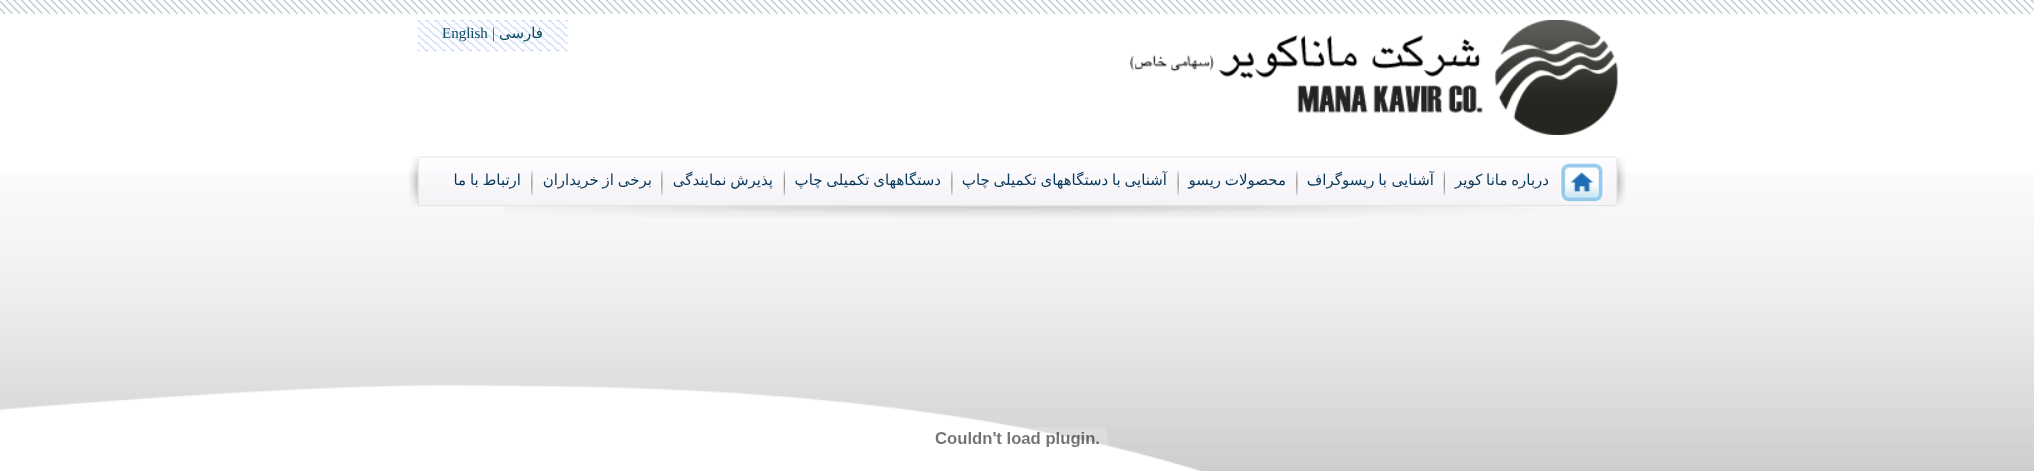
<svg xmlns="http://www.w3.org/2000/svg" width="2034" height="471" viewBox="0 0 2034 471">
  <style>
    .t1 { font: 15px DejaVu Sans; direction: rtl; fill: #084962; }
    .t2 { font: 15px Liberation Serif; fill: #3a3a3a; }
    .t3 { font: 15px Liberation Serif; fill: #084962; }
    .t4 { font: 15px DejaVu Sans; direction: rtl; fill: #09385c; }
  </style>
  <rect width="100%" height="100%" fill="#fff"/>
  <image x="0" y="173" width="2034" height="298" href="images/1.png"/>
  <image x="0" y="0" width="2034" height="14" href="images/2.png"/>
  <image x="1130" y="20" width="488" height="115" href="images/3.png"/>
  <image x="417" y="20" width="151" height="32" href="images/4.png"/>
  <text x="543" y="38" class="t1">فارسی</text>
  <text x="492" y="38" class="t2">|</text>
  <text x="442" y="38" class="t3">English</text>
  <image x="1616" y="157" width="10" height="49" href="images/5.png"/>
  <image x="418" y="156" width="1199" height="50" href="images/6.png"/>
  <image x="1560" y="163" width="44" height="40" href="images/7.png"/>
  <image x="1443" y="171" width="2" height="25" href="images/8.png"/>
  <text x="1549" y="185" word-spacing="-1" class="t4">درباره مانا کویر</text>
  <image x="1296" y="171" width="2" height="25" href="images/9.png"/>
  <text x="1434" y="185" class="t4">آشنایی</text>
  <text x="1387" y="185" word-spacing="-1" class="t4">با ریسوگراف</text>
  <image x="1177" y="171" width="2" height="25" href="images/10.png"/>
  <text x="1286" y="185" word-spacing="-1" class="t4">محصولات ریسو</text>
  <image x="951" y="171" width="2" height="25" href="images/9.png"/>
  <text x="1167" y="185" word-spacing="-1" class="t4">آشنایی با دستگاههای تکمیلی چاپ</text>
  <image x="783" y="171" width="2" height="25" href="images/8.png"/>
  <text x="941" y="185" word-spacing="-1" class="t4">دستگاههای تکمیلی چاپ</text>
  <image x="661" y="171" width="2" height="25" href="images/9.png"/>
  <text x="773" y="185" word-spacing="-1" class="t4">پذیرش نمایندگی</text>
  <image x="531" y="171" width="2" height="25" href="images/9.png"/>
  <text x="652" y="185" word-spacing="-1" class="t4">برخی از خریداران</text>
  <text x="521" y="185" word-spacing="-1" class="t4">ارتباط با ما</text>
  <image x="409" y="157" width="10" height="49" href="images/11.png"/>
  <image x="504" y="206" width="1112" height="12" href="images/12.png"/>
  <image x="935" y="427" width="173" height="20" href="images/13.png"/>
</svg>
